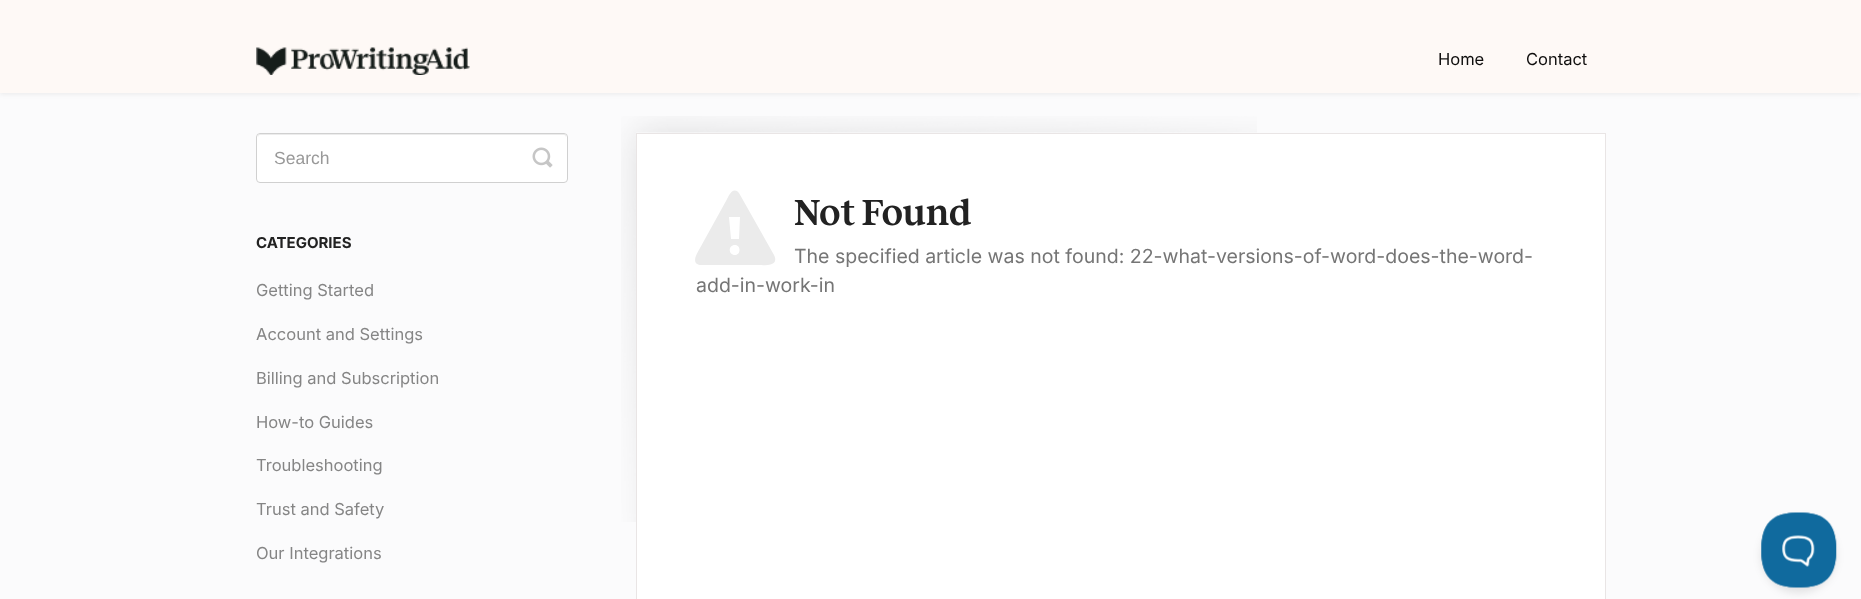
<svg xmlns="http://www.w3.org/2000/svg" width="1861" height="599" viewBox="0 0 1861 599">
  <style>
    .t1 { font: 16.5px Inter; fill: #0f0e0d; }
    .t2 { font: 17.5px Liberation Sans; fill: #999; }
    .t3 { font: bold 15px Inter; fill: #222; }
    .t4 { font: 16.5px Inter; fill: #858585; }
    .t5 { font: 600 37.5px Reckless; fill: #222; }
    .t6 { font: 19.5px Inter; fill: #757575; }
  </style>
  <rect width="100%" height="100%" fill="#fbfbfc"/>
  <rect x="0" y="1" width="1861" height="93" fill="#00000012" filter="blur(2.5px)"/>
  <rect x="0" y="0" width="1861" height="93" fill="#fef9f6"/>
  <image x="256" y="47" width="214" height="28" href="images/1.png"/>
  <text x="1438" y="65" class="t1">Home</text>
  <text x="1526" y="65" class="t1">Contact</text>
  <rect x="256" y="133" width="312" height="50" rx="4" fill="#fff"/>
  <path d="M260 135H564C565 135 566 136 566 138V136C566 135 565 134 564 134H260C259 134 258 135 258 136V138C258 136 259 135 260 135Z" fill="#ececec"/>
  <rect x="256.5" y="133.5" width="311" height="49" rx="3.5" fill="none" stroke="#d0d0d0"/>
  <text x="274" y="164" class="t2">Search</text>
  <image x="532" y="147" width="21" height="21" href="images/2.png"/>
  <text x="256" y="248" class="t3">CATEGORIES</text>
  <text x="256" y="296" class="t4">Getting Started</text>
  <text x="256" y="340" class="t4">Account and Settings</text>
  <text x="256" y="384" class="t4">Billing and Subscription</text>
  <text x="256" y="428" class="t4">How-to Guides</text>
  <text x="256" y="471" class="t4">Troubleshooting</text>
  <text x="256" y="515" class="t4">Trust and Safety</text>
  <text x="256" y="559" class="t4">Our Integrations</text>
  <image x="621" y="116" width="636" height="406" href="images/3.png"/>
  <rect x="636.5" y="133.5" width="969" height="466" fill="#fff" stroke="#e9e5e5"/>
  <path d="M774 255L739 193L737 191C731 188 728 198 726 201L700 248C698 252 690 263 700 265H757C763 265 780 267 774 255ZM740 217L739 239H731L729 217ZM735 255C728 255 728 245 735 245C741 245 741 255 735 255Z" fill="#ebebeb"/>
  <text x="794" y="225" class="t5">Not Found</text>
  <text x="794" y="263" class="t6">The specified article was not found: 22-what-versions-of-word-does-the-word-</text>
  <text x="696" y="292" class="t6">add-in-work-in</text>
  <rect x="1761" y="518" width="75" height="75" rx="37.5" fill="#0000001a" filter="blur(4.5px)"/>
  <image x="1761" y="512" width="76" height="76" href="images/4.png"/>
</svg>
